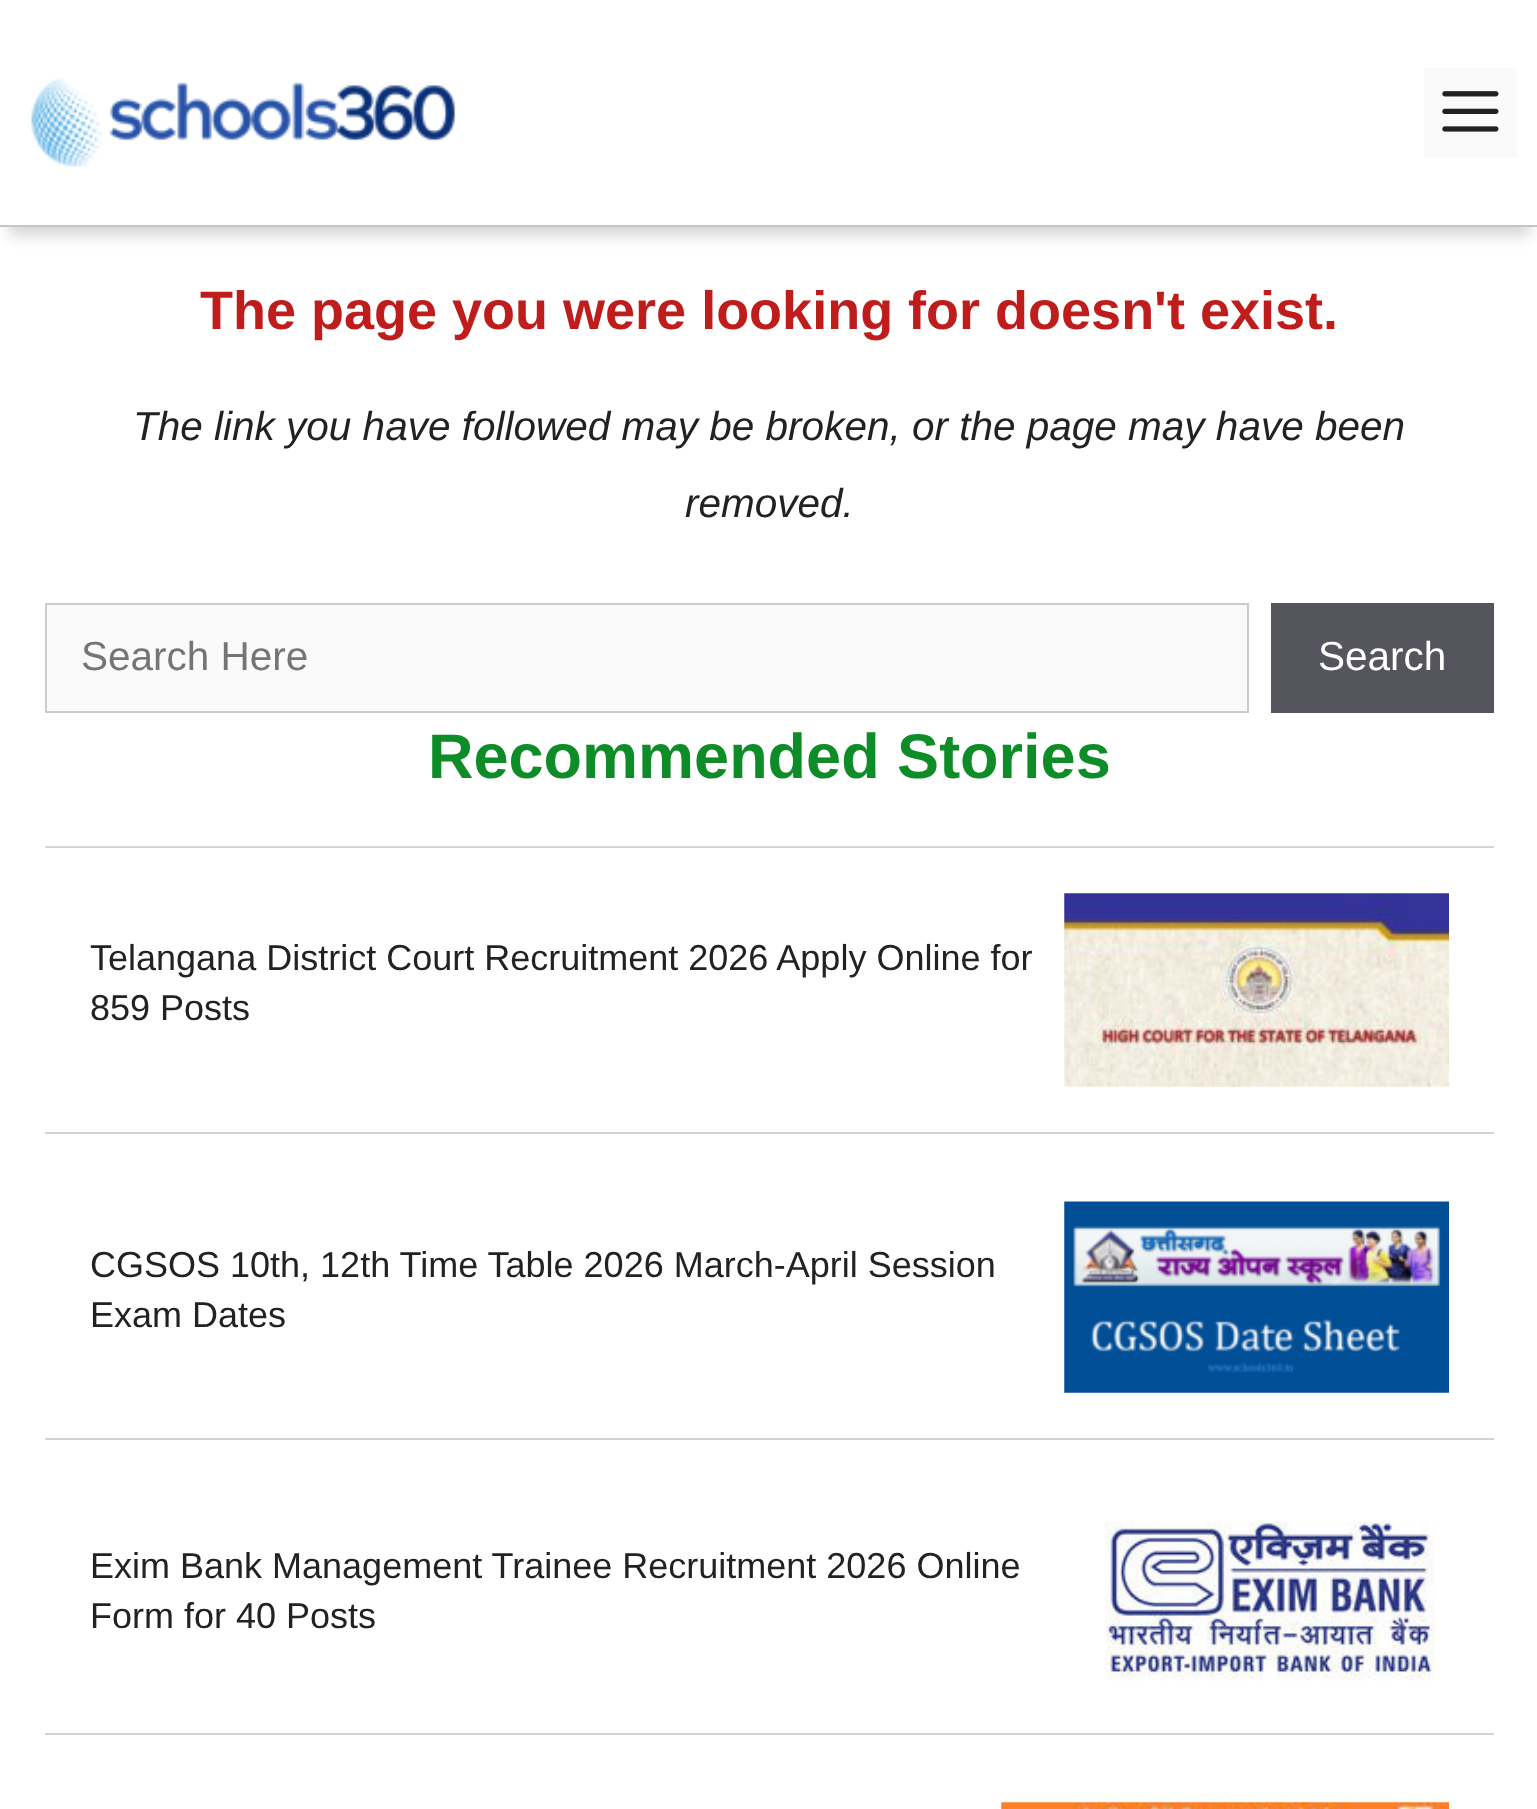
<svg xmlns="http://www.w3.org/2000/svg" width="1537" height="1809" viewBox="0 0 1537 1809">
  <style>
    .t1 { font: bold 54px Liberation Sans; fill: #bf1c1c; }
    .t2 { font: italic 40.5px Liberation Sans; fill: #222; }
    .t3 { font: 40.5px Liberation Sans; fill: #757575; }
    .t4 { font: 40.5px Liberation Sans; fill: #fff; }
    .t5 { font: bold 63px Liberation Sans; fill: #0d8c28; }
    .t6 { font: 36px Liberation Sans; fill: #222; }
  </style>
  <defs>
    <clipPath id="clip1"><rect x="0" y="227" width="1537" height="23"/></clipPath>
  </defs>
  <rect width="100%" height="100%" fill="#fff"/>
  <g clip-path="url(#clip1)">
    <rect x="9" y="27" width="1521" height="209" fill="#d6d6d6" filter="blur(7px)"/>
  </g>
  <rect x="0" y="225" width="1537" height="2" fill="#c5c5c5"/>
  <image x="31" y="78" width="425" height="89" href="images/1.png"/>
  <rect x="1424" y="68" width="93" height="90" fill="#fafafa"/>
  <image x="1442" y="91" width="57" height="41" href="images/2.png"/>
  <text x="200" y="329" class="t1">The page you were looking for doesn't exist.</text>
  <text x="133" y="440" class="t2">The link you have followed may be broken, or the page may have been</text>
  <text x="685" y="517" class="t2">removed.</text>
  <rect x="46" y="604" width="1202" height="108" fill="#fafafa" stroke="#ccc" stroke-width="2"/>
  <text x="81" y="670" class="t3">Search Here</text>
  <rect x="1271" y="603" width="223" height="110" fill="#55555e"/>
  <text x="1318" y="670" class="t4">Search</text>
  <text x="428" y="778" class="t5">Recommended Stories</text>
  <rect x="45" y="846" width="1449" height="2" fill="#d5d5d5"/>
  <rect x="45" y="1132" width="1449" height="2" fill="#d3d3d3"/>
  <text x="90" y="970" class="t6">Telangana District Court Recruitment 2026 Apply Online for</text>
  <text x="90" y="1020" class="t6">859 Posts</text>
  <image x="1064" y="893" width="385" height="194" href="images/3.png"/>
  <rect x="45" y="1438" width="1449" height="2" fill="#d3d3d3"/>
  <text x="90" y="1277" class="t6">CGSOS 10th, 12th Time Table 2026 March-April Session</text>
  <text x="90" y="1327" class="t6">Exam Dates</text>
  <image x="1064" y="1201" width="385" height="192" href="images/4.png"/>
  <rect x="45" y="1733" width="1449" height="2" fill="#d3d3d3"/>
  <text x="90" y="1578" class="t6">Exim Bank Management Trainee Recruitment 2026 Online</text>
  <text x="90" y="1628" class="t6">Form for 40 Posts</text>
  <image x="1105" y="1521" width="330" height="160" href="images/5.png"/>
  <image x="1001" y="1802" width="448" height="7" href="images/6.png"/>
</svg>
